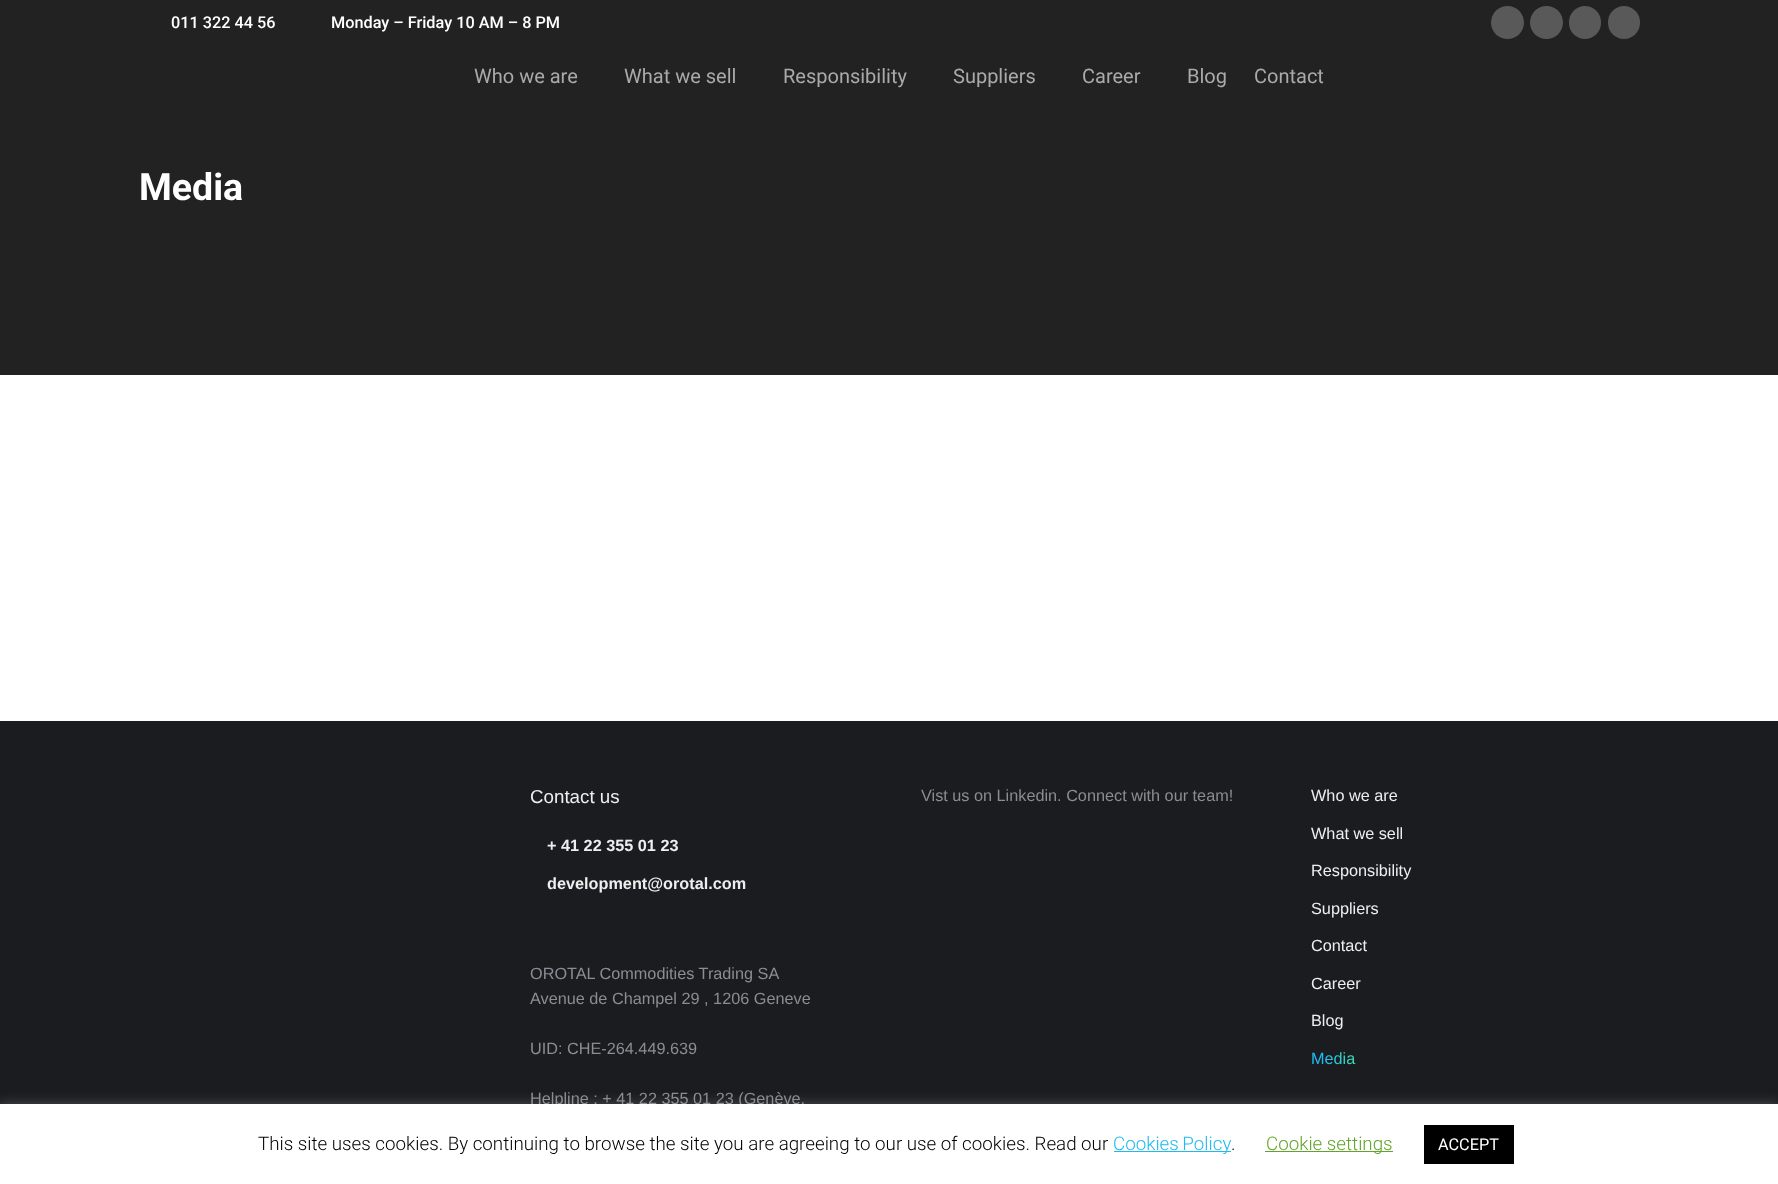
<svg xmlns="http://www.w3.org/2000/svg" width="1778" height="1184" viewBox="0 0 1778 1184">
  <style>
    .t1 { font: 500 16.25px Roboto; fill: #fff; }
    .t2 { font: 20px Roboto; fill: #aaa; }
    .t3 { font: bold 37.5px Roboto; fill: #fff; }
    .t4 { font: 18.75px Liberation Sans; fill: #eee; }
    .t5 { font: bold 16.25px Liberation Sans; fill: #eee; }
    .t6 { font: 16.25px Liberation Sans; fill: #8b8d94; }
    .t7 { font: 16.25px Liberation Sans; fill: #eee; }
    .t8 { font: 16.25px Liberation Sans; fill: url(#g1); }
    .t9 { font: 300 18.75px Roboto; fill: #000; }
    .t10 { font: 300 18.75px Roboto; fill: #1ebbf0; }
    .t11 { font: 300 18.75px Roboto; fill: #62a329; }
    .t12 { font: 16.25px Roboto; fill: #fff; }
  </style>
  <defs>
    <linearGradient id="g1" gradientUnits="userSpaceOnUse" x1="1311" y1="1059" x2="1356" y2="1059"><stop offset="0.3" stop-color="#1ebbf0"/><stop offset="1" stop-color="#39dfaa"/></linearGradient>
  </defs>
  <rect width="100%" height="100%" fill="#fff"/>
  <rect x="0" y="0" width="1778" height="375" fill="#222"/>
  <text x="171" y="28" class="t1">011 322 44 56</text>
  <text x="331" y="28" class="t1">Monday – Friday 10 AM – 8 PM</text>
  <circle cx="1507.5" cy="22.5" r="16.5" fill="#595959"/>
  <circle cx="1546.5" cy="22.5" r="16.5" fill="#595959"/>
  <rect x="1569" y="6" width="32" height="33" rx="16" fill="#595959"/>
  <rect x="1608" y="6" width="32" height="33" rx="16" fill="#595959"/>
  <text x="474" y="83" class="t2">Who we are</text>
  <text x="624" y="83" class="t2">What we sell</text>
  <text x="783" y="83" class="t2">Responsibility</text>
  <text x="953" y="83" class="t2">Suppliers</text>
  <text x="1082" y="83" class="t2">Career</text>
  <text x="1187" y="83" class="t2">Blog</text>
  <text x="1254" y="83" class="t2">Contact</text>
  <text x="139" y="200" class="t3">Media</text>
  <rect x="0" y="721" width="1778" height="383" fill="#1a1c20"/>
  <text x="530" y="803" class="t4">Contact us</text>
  <text x="547" y="851" class="t5">+ 41 22 355 01 23</text>
  <text x="547" y="889" class="t5">development@orotal.com</text>
  <text x="530" y="979" class="t6">OROTAL Commodities Trading SA</text>
  <text x="530" y="1004" class="t6">Avenue de Champel 29 , 1206 Geneve</text>
  <text x="530" y="1054" class="t6">UID: CHE-264.449.639</text>
  <text x="530" y="1104" class="t6">Helpline : + 41 22 355 01 23 (Genève,</text>
  <text x="921" y="801" class="t6">Vist us on Linkedin. Connect with our team!</text>
  <text x="1311" y="801" class="t7">Who we are</text>
  <text x="1311" y="839" class="t7">What we sell</text>
  <text x="1311" y="876" class="t7">Responsibility</text>
  <text x="1311" y="914" class="t7">Suppliers</text>
  <text x="1311" y="951" class="t7">Contact</text>
  <text x="1311" y="989" class="t7">Career</text>
  <text x="1311" y="1026" class="t7">Blog</text>
  <text x="1311" y="1064" class="t8">Media</text>
  <rect x="0" y="1103" width="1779" height="81" fill="#acabab4d" filter="blur(6px)"/>
  <rect x="0" y="1104" width="1778" height="80" fill="#fff"/>
  <text x="258" y="1150" class="t9">This site uses cookies. By continuing to browse the site you are agreeing to our use of cookies. Read our</text>
  <rect x="1114" y="1151" width="117" height="1" fill="#1ebbf0"/>
  <text x="1113" y="1150" word-spacing="-1" class="t10">Cookies Policy</text>
  <text x="1231" y="1150" class="t9">.</text>
  <rect x="1265" y="1151" width="128" height="1" fill="#62a329"/>
  <text x="1266" y="1150" class="t11">Cookie settings</text>
  <rect x="1424" y="1125" width="90" height="39" fill="#000"/>
  <text x="1438" y="1150" class="t12">ACCEPT</text>
</svg>
